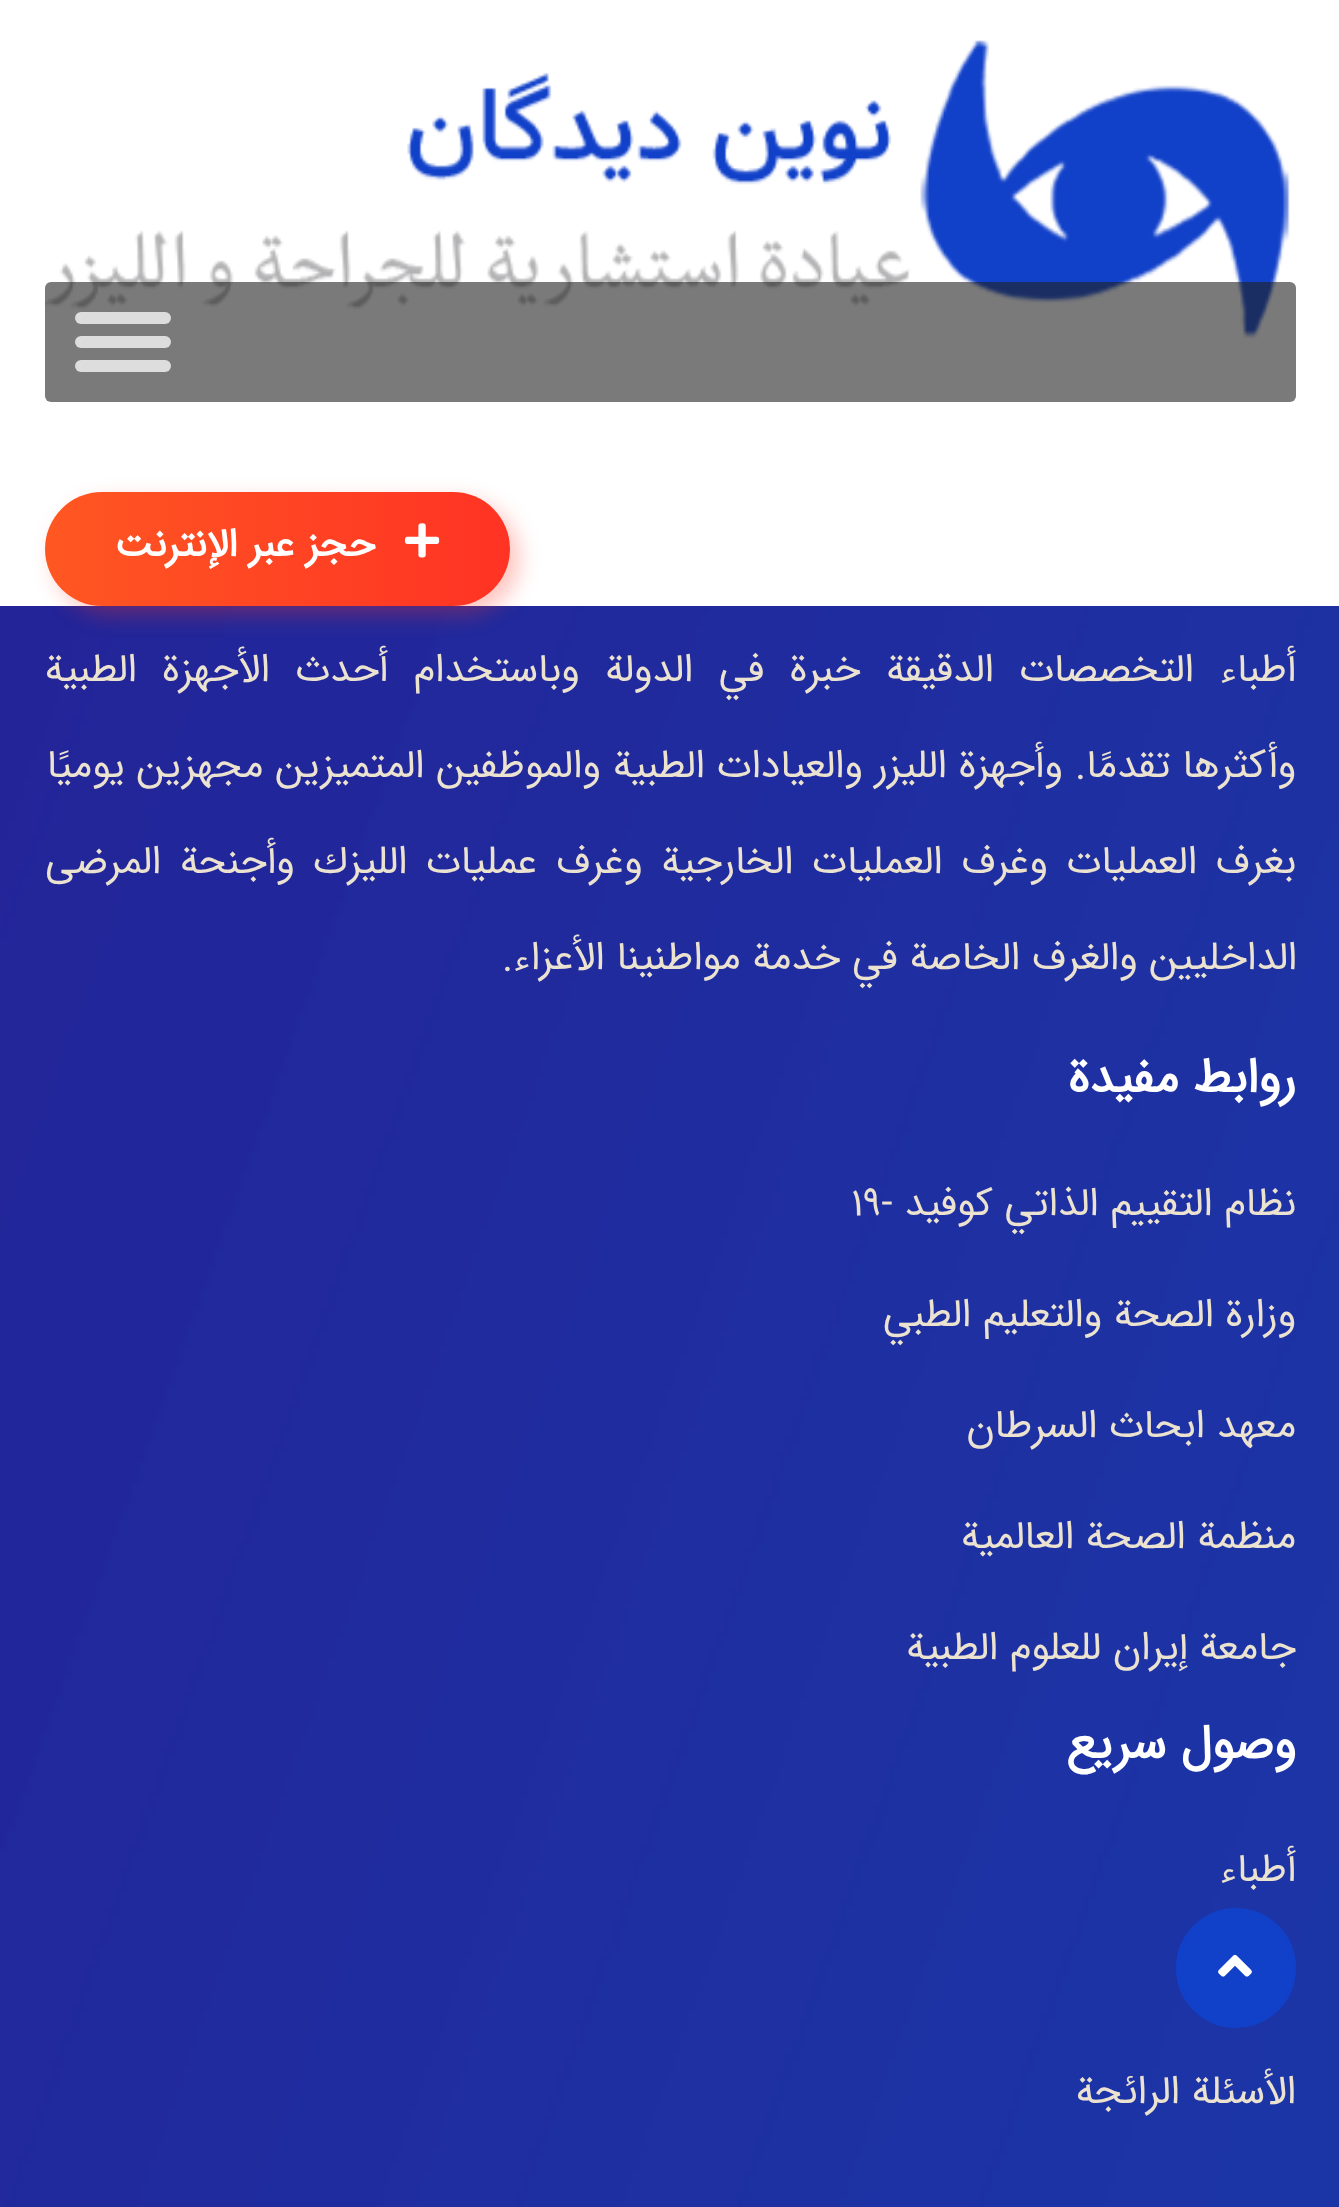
<svg xmlns="http://www.w3.org/2000/svg" width="1339" height="2207" viewBox="0 0 1339 2207">
  <style>
    .t1 { font: bold 39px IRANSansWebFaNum; direction: rtl; fill: #fff; }
    .t2 { font: 39.6px IRANSansWebFaNum; direction: rtl; fill: #ece2d0; }
    .t3 { font: bold 48px IRANSansWebFaNum; direction: rtl; fill: #fff; }
    .t4 { font: 39.6px IRANSansWebFaNum; fill: #ece2d0; }
  </style>
  <defs>
    <linearGradient id="g1" gradientUnits="userSpaceOnUse" x1="45" y1="549" x2="510" y2="549"><stop offset="0" stop-color="#ff5722"/><stop offset="1" stop-color="#ff3324"/></linearGradient>
  </defs>
  <rect width="100%" height="100%" fill="#fff"/>
  <image x="45" y="40" width="1245" height="299" href="images/1.png"/>
  <rect x="45" y="282" width="1251" height="120" rx="6" fill="#22222299"/>
  <rect x="75" y="312" width="96" height="12" rx="6" fill="#ddd"/>
  <rect x="75" y="336" width="96" height="12" rx="6" fill="#ddd"/>
  <rect x="75" y="360" width="96" height="12" rx="6" fill="#ddd"/>
  <image x="0" y="606" width="1339" height="1601" href="images/3.png"/>
  <rect x="54" y="501" width="465" height="114" rx="57" fill="#ff35244d" filter="blur(10.5px)"/>
  <rect x="45" y="492" width="465" height="114" rx="57" fill="url(#g1)"/>
  <image x="405" y="523" width="35" height="35" href="images/2.png"/>
  <text x="375" y="556" class="t1">حجز عبر الإنترنت</text>
  <text x="1296" y="681" word-spacing="13.75" class="t2">أطباء التخصصات الدقيقة خبرة في الدولة وباستخدام أحدث الأجهزة الطبية</text>
  <text x="1296" y="777" word-spacing="0.25" class="t2">وأكثرها تقدمًا. وأجهزة الليزر والعيادات الطبية والموظفين المتميزين مجهزين يوميًا</text>
  <text x="1296" y="873" word-spacing="7" class="t2">بغرف العمليات وغرف العمليات الخارجية وغرف عمليات الليزك وأجنحة المرضى</text>
  <text x="1297" y="969" class="t2">الداخليين والغرف الخاصة في خدمة مواطنينا الأعزاء.</text>
  <text x="1296" y="1092" class="t3">روابط مفيدة</text>
  <text x="1296" y="1215" class="t2">نظام التقييم الذاتي كوفيد -</text>
  <text x="851" y="1215" class="t4">19</text>
  <text x="1296" y="1326" class="t2">وزارة الصحة والتعليم الطبي</text>
  <text x="1296" y="1437" class="t2">معهد ابحاث السرطان</text>
  <text x="1296" y="1548" class="t2">منظمة الصحة العالمية</text>
  <text x="1296" y="1659" class="t2">جامعة إيران للعلوم الطبية</text>
  <text x="1296" y="1758" class="t3">وصول سريع</text>
  <text x="1296" y="1881" class="t2">أطباء</text>
  <text x="1296" y="2103" class="t2">الأسئلة الرائجة</text>
  <circle cx="1236" cy="1968" r="58.5" fill="#1141c9" stroke="#1141c9" stroke-width="3"/>
  <image x="1218" y="1954" width="34" height="23" href="images/4.png"/>
</svg>
